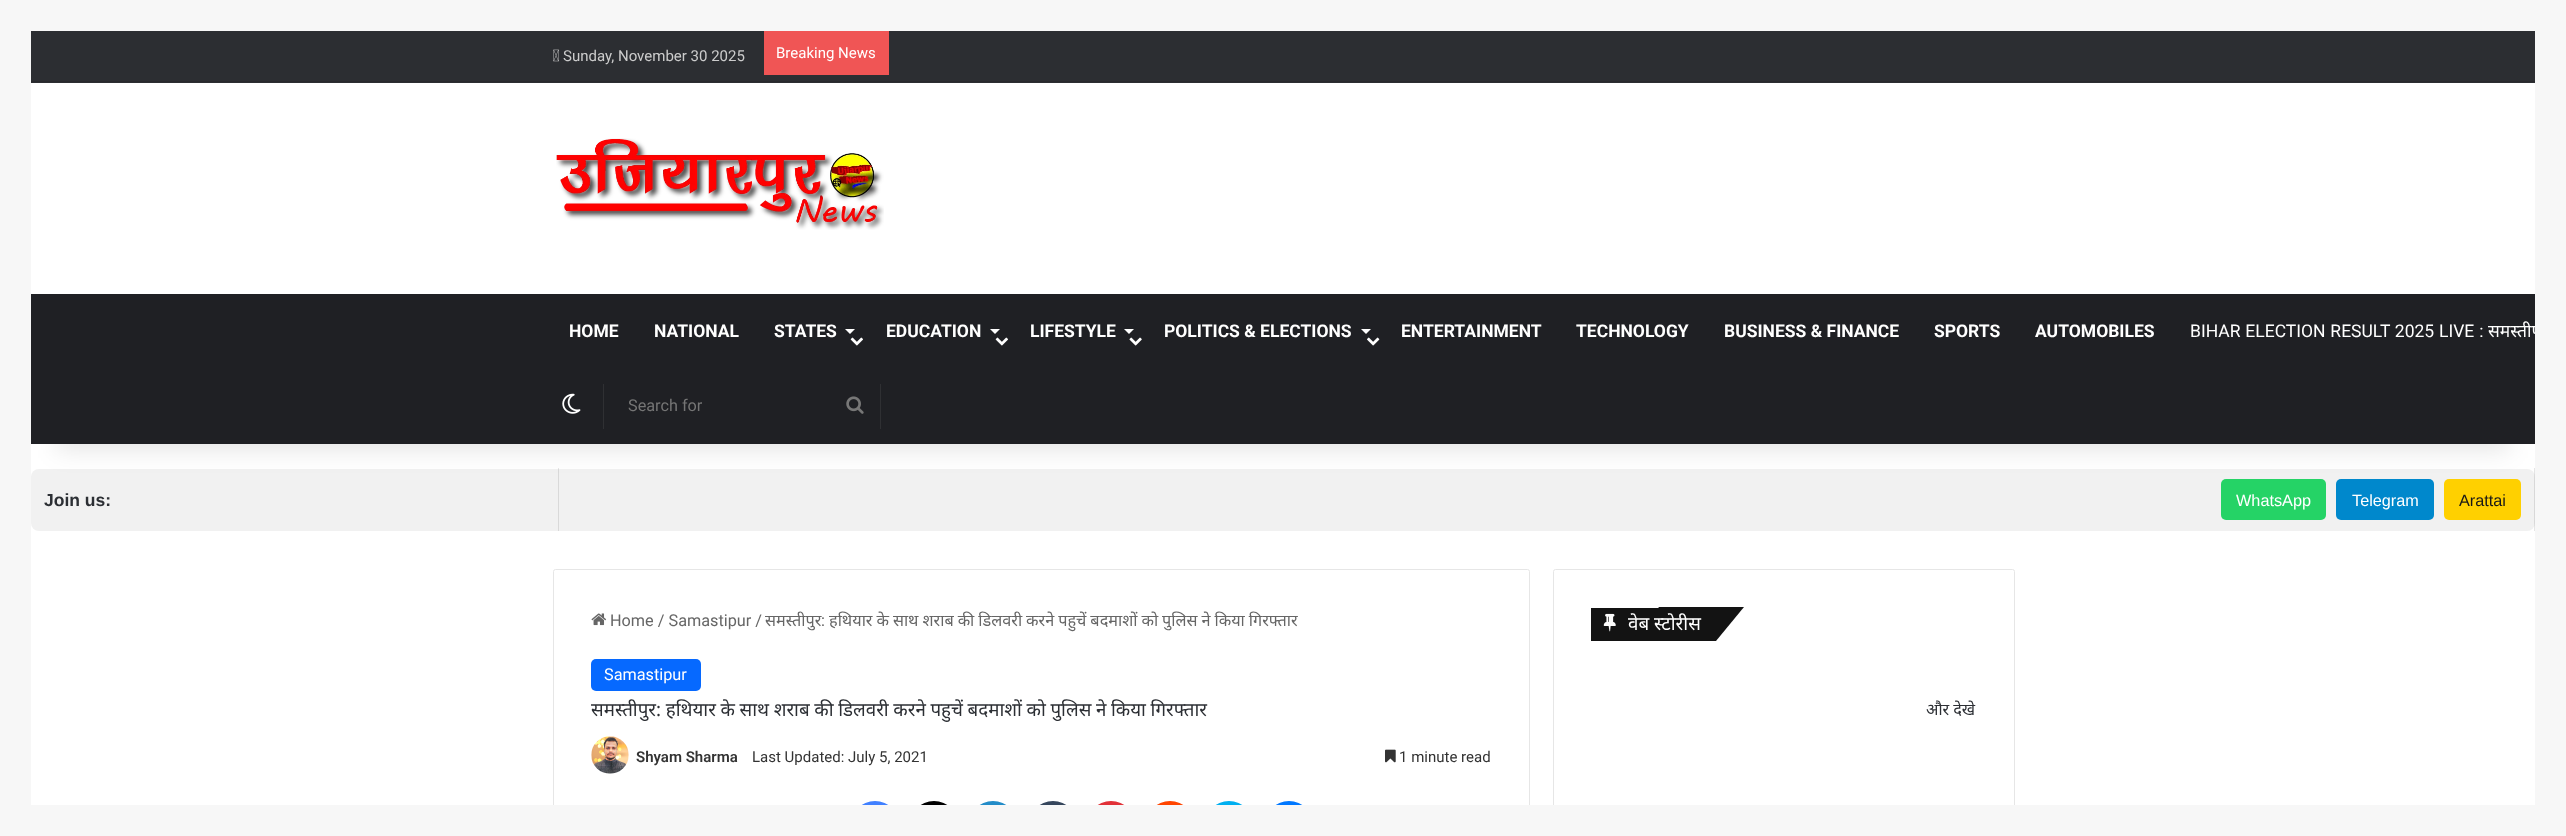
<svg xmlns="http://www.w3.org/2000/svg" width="2566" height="836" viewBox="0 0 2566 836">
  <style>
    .t1 { font: 15px Roboto; fill: #ccc; }
    .t2 { font: 15px Roboto; fill: #fff; }
    .t3 { font: bold 17.5px Roboto; fill: #fff; }
    .t4 { font: 17.5px Roboto; fill: #fff; }
    .t5 { font: 17.5px Noto Sans; fill: #fff; }
    .t6 { font: 16.25px Roboto; fill: #757575; }
    .t7 { font: bold 17.5px Liberation Sans; fill: #2c2f34; }
    .t8 { font: 16.25px Liberation Sans; fill: #fff; }
    .t9 { font: 16.25px Liberation Sans; fill: #181818; }
    .t10 { font: 16.25px Roboto; fill: #666; }
    .t11 { font: 16.25px Noto Sans; fill: #666; }
    .t12 { font: 16.25px Roboto; fill: #fff; }
    .t13 { font: 18.75px Noto Sans; fill: #2c2f34; }
    .t14 { font: 600 15px Roboto; fill: #333; }
    .t15 { font: 15px Roboto; fill: #333; }
    .t16 { font: 18.75px Noto Sans; fill: #fff; }
    .t17 { font: 16.25px Noto Sans; fill: #2c2f34; }
  </style>
  <defs>
    <clipPath id="clip1"><rect x="31" y="31" width="2504" height="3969"/></clipPath>
  </defs>
  <rect width="100%" height="100%" fill="#f7f7f7"/>
  <rect x="31" y="444" width="2504" height="361" fill="#fff"/>
  <rect x="558" y="468" width="1" height="1" fill="#e6e6e6"/>
  <rect x="31" y="469" width="2504" height="62" rx="8" fill="#f1f1f1"/>
  <rect x="558" y="469" width="1" height="62" fill="#d9d9d9"/>
  <rect x="2534" y="468" width="1" height="63" fill="#0000001a"/>
  <rect x="2221" y="479" width="105" height="41" rx="5" fill="#25d366"/>
  <rect x="2336" y="479" width="98" height="41" rx="5" fill="#08c"/>
  <rect x="2444" y="479" width="77" height="41" rx="5" fill="#ffd000"/>
  <rect x="56" y="88" width="2454" height="362" fill="#0000001a" filter="blur(12.5px)"/>
  <rect x="31" y="83" width="2504" height="211" fill="#fff"/>
  <rect x="31" y="31" width="2504" height="52" fill="#2c2e32"/>
  <rect x="31" y="81" width="2504" height="1" fill="#28292d"/>
  <image x="553" y="49" width="6" height="13" href="images/1.png"/>
  <text x="563" y="61" class="t1">Sunday, November 30 2025</text>
  <rect x="764" y="31" width="125" height="44" fill="#f05555"/>
  <text x="776" y="58" class="t2">Breaking News</text>
  <image x="556" y="138" width="328" height="92" href="images/2.png"/>
  <rect x="31" y="294" width="2504" height="150" fill="#1f2024"/>
  <text x="569" y="337" class="t3">HOME</text>
  <text x="654" y="337" class="t3">NATIONAL</text>
  <text x="774" y="337" class="t3">STATES</text>
  <path d="M845 329H855L850 334Z" fill="#fff"/>
  <image x="850" y="337" width="13" height="9" href="images/3.png"/>
  <text x="886" y="337" class="t3">EDUCATION</text>
  <path d="M990 329H1000L995 334Z" fill="#fff"/>
  <image x="995" y="337" width="13" height="9" href="images/3.png"/>
  <text x="1030" y="337" class="t3">LIFESTYLE</text>
  <path d="M1124 329H1134L1129 334Z" fill="#fff"/>
  <image x="1129" y="337" width="13" height="9" href="images/4.png"/>
  <text x="1164" y="337" class="t3">POLITICS &amp; ELECTIONS</text>
  <path d="M1361 329H1371L1366 334Z" fill="#fff"/>
  <image x="1367" y="337" width="13" height="9" href="images/5.png"/>
  <text x="1401" y="337" class="t3">ENTERTAINMENT</text>
  <text x="1576" y="337" class="t3">TECHNOLOGY</text>
  <text x="1724" y="337" class="t3">BUSINESS &amp; FINANCE</text>
  <text x="1934" y="337" class="t3">SPORTS</text>
  <text x="2035" y="337" class="t3">AUTOMOBILES</text>
  <text x="2190" y="337" word-spacing="0.5" class="t4">BIHAR ELECTION RESULT 2025 LIVE :</text>
  <g clip-path="url(#clip1)">
    <text x="2488" y="337" class="t5">समस्तीप</text>
  </g>
  <image x="562" y="393" width="19" height="21" href="images/6.png"/>
  <rect x="880" y="384" width="1" height="45" fill="#2f3033"/>
  <rect x="603" y="384" width="1" height="45" fill="#2f3033"/>
  <text x="628" y="411" class="t6">Search for</text>
  <image x="846" y="396" width="18" height="18" href="images/7.png"/>
  <text x="44" y="506" class="t7">Join us:</text>
  <text x="2236" y="506" class="t8">WhatsApp</text>
  <text x="2352" y="506" class="t8">Telegram</text>
  <text x="2459" y="506" class="t9">Arattai</text>
  <rect x="553.5" y="569.5" width="976" height="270" rx="2" fill="none" stroke="#e6e6e6"/>
  <image x="591" y="613" width="16" height="13" href="images/8.png"/>
  <text x="610" y="626" class="t10">Home / Samastipur /</text>
  <text x="765" y="626" class="t11">समस्तीपुर</text>
  <text x="821" y="626" class="t10">:</text>
  <text x="829" y="626" word-spacing="-0.25" class="t11">हथियार के साथ शराब की डिलवरी करने पहुचें बदमाशों को पुलिस ने किया गिरफ्तार</text>
  <rect x="591" y="659" width="110" height="32" rx="5" fill="#0669ff"/>
  <text x="604" y="680" class="t12">Samastipur</text>
  <text x="591" y="716" word-spacing="-0.25" class="t13">समस्तीपुर: हथियार के साथ शराब की डिलवरी करने पहुचें बदमाशों को पुलिस ने किया गिरफ्तार</text>
  <image x="591" y="736" width="38" height="38" href="images/9.png"/>
  <text x="636" y="762" class="t14">Shyam Sharma</text>
  <text x="752" y="762" class="t15">Last Updated: July 5, 2021</text>
  <image x="1385" y="749" width="11" height="14" href="images/10.png"/>
  <text x="1399" y="762" class="t15">1 minute read</text>
  <circle cx="875" cy="826" r="25" fill="#4080ff"/>
  <circle cx="934" cy="826" r="25" fill="#000"/>
  <circle cx="993" cy="826" r="25" fill="#238cc8"/>
  <circle cx="1053" cy="826" r="25" fill="#35465c"/>
  <circle cx="1111" cy="826" r="25" fill="#e13138"/>
  <circle cx="1170" cy="826" r="25" fill="#ff4500"/>
  <circle cx="1229" cy="826" r="25" fill="#00aff0"/>
  <circle cx="1289" cy="826" r="25" fill="#0078ff"/>
  <rect x="1553.5" y="569.5" width="461" height="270" rx="2" fill="none" stroke="#e6e6e6"/>
  <rect x="1591" y="608" width="68" height="33" fill="#131313"/>
  <path d="M1659 607H1744L1716 641H1631Z" fill="#131313"/>
  <image x="1603" y="613" width="13" height="19" href="images/11.png"/>
  <text x="1628" y="630" class="t16">वेब स्टोरीस</text>
  <text x="1926" y="715" word-spacing="-0.25" class="t17">और देखे</text>
  <rect x="553" y="805" width="1462" height="31" fill="#f7f7f7"/>
</svg>
